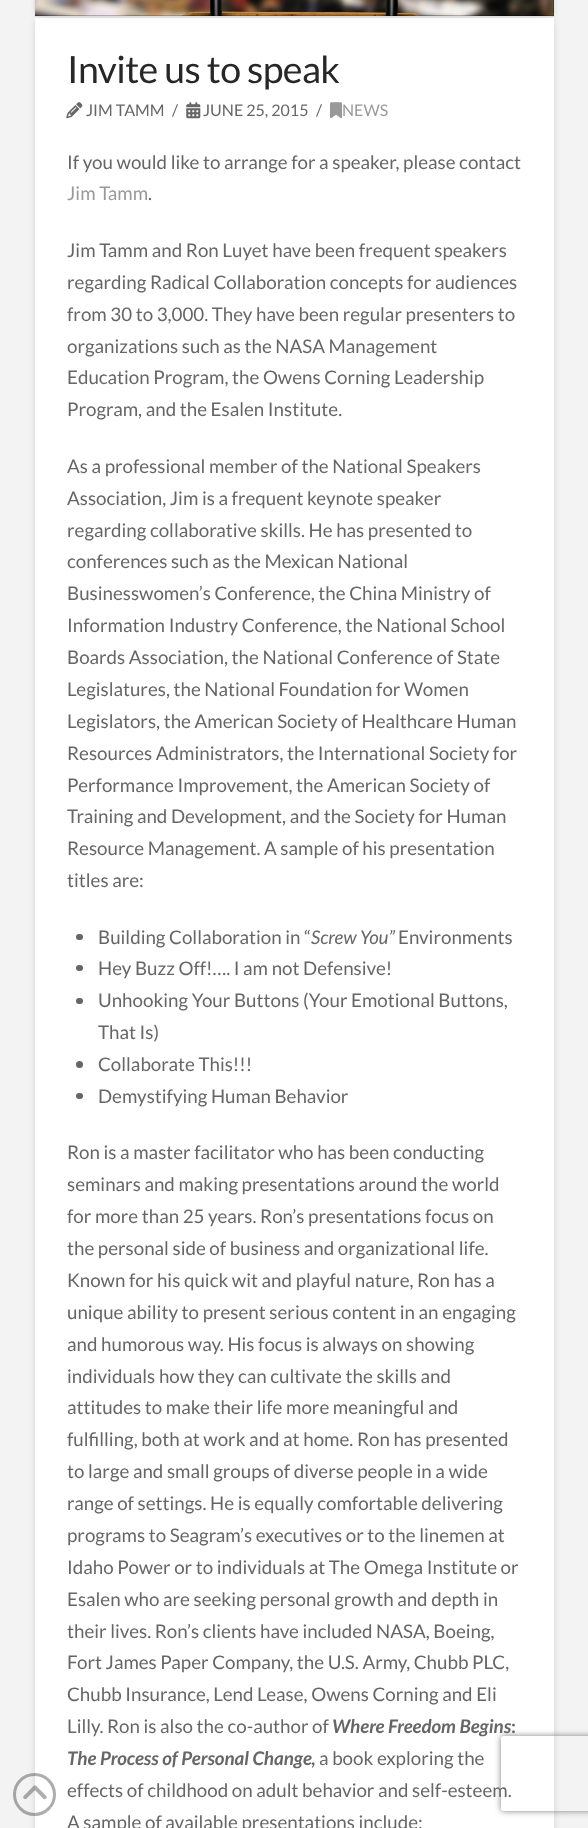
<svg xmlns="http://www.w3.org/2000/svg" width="588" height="1828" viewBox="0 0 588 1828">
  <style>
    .t1 { font: 37.5px Lato; letter-spacing: -0.6px; fill: #272727; }
    .t2 { font: 16px Lato; fill: #666; }
    .t3 { font: 16px Lato; fill: #999; }
    .t4 { font: 18.75px Lato; fill: #666; }
    .t5 { font: 18.75px Lato; fill: #999; }
    .t6 { font: italic 18.75px Lato; fill: #666; }
    .t7 { font: italic bold 18.75px Lato; fill: #666; }
    .t8 { font: bold 18.75px Lato; fill: #666; }
  </style>
  <defs>
    <clipPath id="clip1"><path d="M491 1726H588V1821H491ZM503.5 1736H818.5C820 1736 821 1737 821 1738.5V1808.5C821 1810 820 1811 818.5 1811H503.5C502 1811 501 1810 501 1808.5V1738.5C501 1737 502 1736 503.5 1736Z" clip-rule="evenodd"/></clipPath>
  </defs>
  <rect width="100%" height="100%" fill="#f3f3f3"/>
  <rect x="35" y="20" width="519" height="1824" rx="5" fill="#00000021" filter="blur(3.5px)"/>
  <rect x="35" y="18" width="519" height="1810" fill="#fff"/>
  <circle cx="34.5" cy="1794.5" r="20" fill="none" stroke="#27272761" stroke-width="3"/>
  <image x="23" y="1785" width="24" height="15" href="images/1.png"/>
  <rect x="35" y="-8" width="509" height="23" fill="#00000021" filter="blur(2.5px)"/>
  <rect x="45" y="-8" width="509" height="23" fill="#00000021" filter="blur(2.5px)"/>
  <rect x="35" y="16" width="519" height="1" fill="#ddd"/>
  <rect x="35" y="0" width="519" height="16" fill="#000"/>
  <image x="35" y="0" width="519" height="16" href="images/2.png"/>
  <text x="67" y="83" class="t1">Invite us to speak</text>
  <image x="66" y="102" width="17" height="17" href="images/3.png"/>
  <text x="86" y="116" class="t2">JIM TAMM</text>
  <text x="172" y="116" class="t2">/</text>
  <image x="186" y="102" width="15" height="17" href="images/4.png"/>
  <text x="203" y="116" class="t2">JUNE 25, 2015</text>
  <text x="316" y="116" class="t2">/</text>
  <image x="330" y="102" width="13" height="17" href="images/5.png"/>
  <text x="342" y="116" class="t3">NEWS</text>
  <text x="67" y="169" class="t4">If you would like to arrange for a speaker, please contact</text>
  <text x="67" y="200" class="t5">Jim Tamm</text>
  <text x="148" y="200" class="t4">.</text>
  <text x="67" y="257" class="t4">Jim Tamm and Ron Luyet have been frequent speakers</text>
  <text x="67" y="289" class="t4">regarding Radical Collaboration concepts for audiences</text>
  <text x="67" y="321" class="t4">from 30 to 3,000. They have been regular presenters to</text>
  <text x="67" y="353" class="t4">organizations such as the NASA Management</text>
  <text x="67" y="384" class="t4">Education Program, the Owens Corning Leadership</text>
  <text x="67" y="416" class="t4">Program, and the Esalen Institute.</text>
  <text x="67" y="473" class="t4">As a professional member of the National Speakers</text>
  <text x="67" y="505" class="t4">Association, Jim is a frequent keynote speaker</text>
  <text x="67" y="537" class="t4">regarding collaborative skills. He has presented to</text>
  <text x="67" y="568" class="t4">conferences such as the Mexican National</text>
  <text x="67" y="600" class="t4">Businesswomen’s Conference, the China Ministry of</text>
  <text x="67" y="632" class="t4">Information Industry Conference, the National School</text>
  <text x="67" y="664" class="t4">Boards Association, the National Conference of State</text>
  <text x="67" y="696" class="t4">Legislatures, the National Foundation for Women</text>
  <text x="67" y="728" class="t4">Legislators, the American Society of Healthcare Human</text>
  <text x="67" y="760" class="t4">Resources Administrators, the International Society for</text>
  <text x="67" y="792" class="t4">Performance Improvement, the American Society of</text>
  <text x="67" y="823" class="t4">Training and Development, and the Society for Human</text>
  <text x="67" y="855" class="t4">Resource Management. A sample of his presentation</text>
  <text x="67" y="887" class="t4">titles are:</text>
  <rect x="76" y="934" width="7" height="6" rx="3" fill="#666"/>
  <text x="98" y="944" class="t4">Building Collaboration in “</text>
  <text x="311" y="944" class="t6">Screw You”</text>
  <text x="398" y="944" class="t4">Environments</text>
  <rect x="76" y="965" width="7" height="6" rx="3" fill="#666"/>
  <text x="98" y="975" class="t4">Hey Buzz Off!…. I am not Defensive!</text>
  <rect x="76" y="998" width="7" height="6" rx="3" fill="#666"/>
  <text x="98" y="1007" class="t4">Unhooking Your Buttons (Your Emotional Buttons,</text>
  <text x="98" y="1039" class="t4">That Is)</text>
  <circle cx="79.5" cy="1064.5" r="3.5" fill="#666"/>
  <text x="98" y="1071" class="t4">Collaborate This!!!</text>
  <rect x="76" y="1093" width="7" height="6" rx="3" fill="#666"/>
  <text x="98" y="1103" class="t4">Demystifying Human Behavior</text>
  <text x="67" y="1159" class="t4">Ron is a master facilitator who has been conducting</text>
  <text x="67" y="1191" class="t4">seminars and making presentations around the world</text>
  <text x="67" y="1223" class="t4">for more than 25 years. Ron’s presentations focus on</text>
  <text x="67" y="1255" class="t4">the personal side of business and organizational life.</text>
  <text x="67" y="1287" class="t4">Known for his quick wit and playful nature, Ron has a</text>
  <text x="67" y="1319" class="t4">unique ability to present serious content in an engaging</text>
  <text x="67" y="1351" class="t4">and humorous way. His focus is always on showing</text>
  <text x="67" y="1383" class="t4">individuals how they can cultivate the skills and</text>
  <text x="67" y="1414" class="t4">attitudes to make their life more meaningful and</text>
  <text x="67" y="1446" class="t4">fulfilling, both at work and at home. Ron has presented</text>
  <text x="67" y="1478" class="t4">to large and small groups of diverse people in a wide</text>
  <text x="67" y="1510" class="t4">range of settings. He is equally comfortable delivering</text>
  <text x="67" y="1542" class="t4">programs to Seagram’s executives or to the linemen at</text>
  <text x="67" y="1574" class="t4">Idaho Power or to individuals at The Omega Institute or</text>
  <text x="67" y="1606" class="t4">Esalen who are seeking personal growth and depth in</text>
  <text x="67" y="1638" class="t4">their lives. Ron’s clients have included NASA, Boeing,</text>
  <text x="67" y="1669" class="t4">Fort James Paper Company, the U.S. Army, Chubb PLC,</text>
  <text x="67" y="1701" class="t4">Chubb Insurance, Lend Lease, Owens Corning and Eli</text>
  <text x="67" y="1733" class="t4">Lilly. Ron is also the co-author of</text>
  <text x="332" y="1733" class="t7">Where Freedom Begins</text>
  <text x="511" y="1733" class="t8">:</text>
  <text x="67" y="1765" class="t7">The Process of Personal Change</text>
  <text x="311" y="1765" class="t8">,</text>
  <text x="319" y="1765" class="t4">a book exploring the</text>
  <text x="67" y="1797" class="t4">effects of childhood on adult behavior and self-esteem.</text>
  <text x="67" y="1829" class="t4">A sample of available presentations include:</text>
  <g clip-path="url(#clip1)">
    <rect x="501" y="1736" width="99" height="75" rx="2.5" fill="#808080" filter="blur(3px)"/>
  </g>
</svg>
